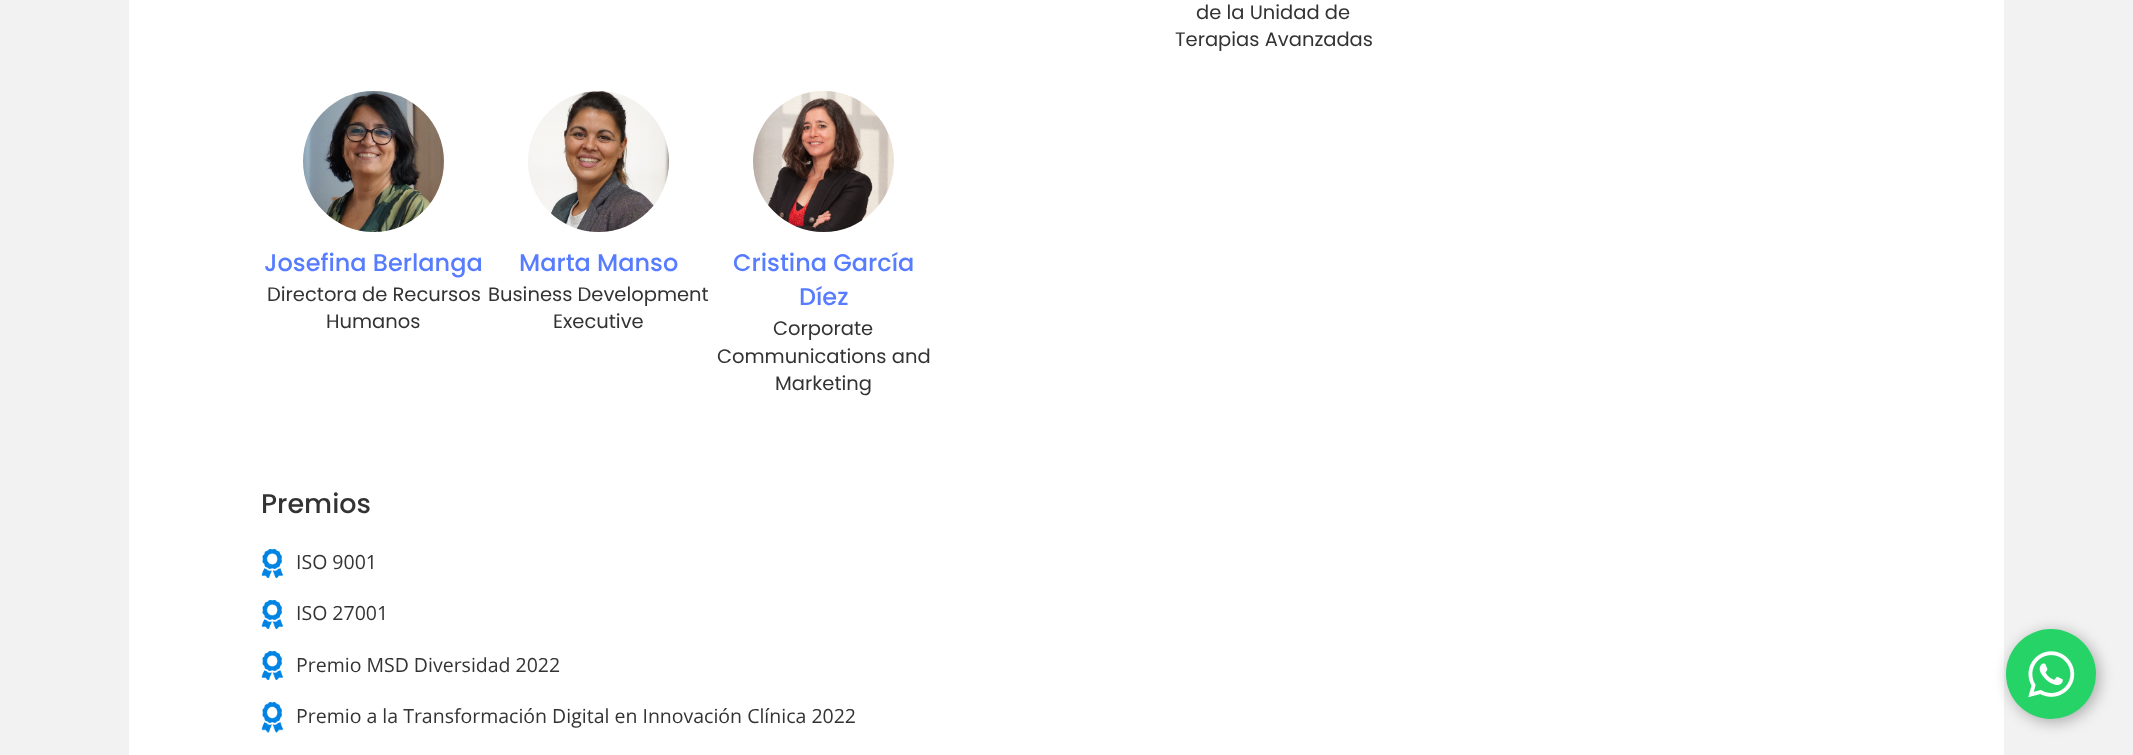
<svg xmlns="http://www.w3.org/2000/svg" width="2133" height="755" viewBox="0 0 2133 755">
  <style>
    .t1 { font: 19.5px Poppins; fill: #333; }
    .t2 { font: 500 24px Poppins; fill: #577cff; }
    .t3 { font: 500 27px Poppins; fill: #333; }
    .t4 { font: 19.5px Open Sans; fill: #333; }
  </style>
  <rect width="100%" height="100%" fill="#f2f2f2"/>
  <rect x="129" y="0" width="1875" height="755" fill="#fff"/>
  <text x="1196" y="19" class="t1">de la Unidad de</text>
  <text x="1175" y="46" class="t1">Terapias Avanzadas</text>
  <image x="303" y="91" width="141" height="141" href="images/1.png"/>
  <text x="264" y="271" class="t2">Josefina Berlanga</text>
  <text x="267" y="301" class="t1">Directora de Recursos</text>
  <text x="326" y="328" class="t1">Humanos</text>
  <image x="528" y="91" width="141" height="141" href="images/2.png"/>
  <text x="519" y="271" class="t2">Marta Manso</text>
  <text x="488" y="301" class="t1">Business Development</text>
  <text x="553" y="328" class="t1">Executive</text>
  <image x="753" y="91" width="141" height="141" href="images/3.png"/>
  <text x="733" y="271" class="t2">Cristina García</text>
  <text x="799" y="305" class="t2">Díez</text>
  <text x="773" y="335" class="t1">Corporate</text>
  <text x="717" y="363" class="t1">Communications and</text>
  <text x="775" y="390" class="t1">Marketing</text>
  <text x="261" y="513" class="t3">Premios</text>
  <image x="261" y="549" width="22" height="29" href="images/4.png"/>
  <text x="296" y="569" class="t4">ISO 9001</text>
  <image x="261" y="600" width="22" height="29" href="images/4.png"/>
  <text x="296" y="620" class="t4">ISO 27001</text>
  <image x="261" y="651" width="22" height="29" href="images/4.png"/>
  <text x="296" y="672" class="t4">Premio MSD Diversidad 2022</text>
  <image x="261" y="702" width="22" height="31" href="images/5.png"/>
  <text x="296" y="723" class="t4">Premio a la Transformación Digital en Innovación Clínica 2022</text>
  <rect x="2009" y="632" width="90" height="90" rx="45" fill="#0000004d" filter="blur(7.5px)"/>
  <circle cx="2051" cy="674" r="45" fill="#25d366"/>
  <image x="2028" y="651" width="47" height="47" href="images/6.png"/>
</svg>
